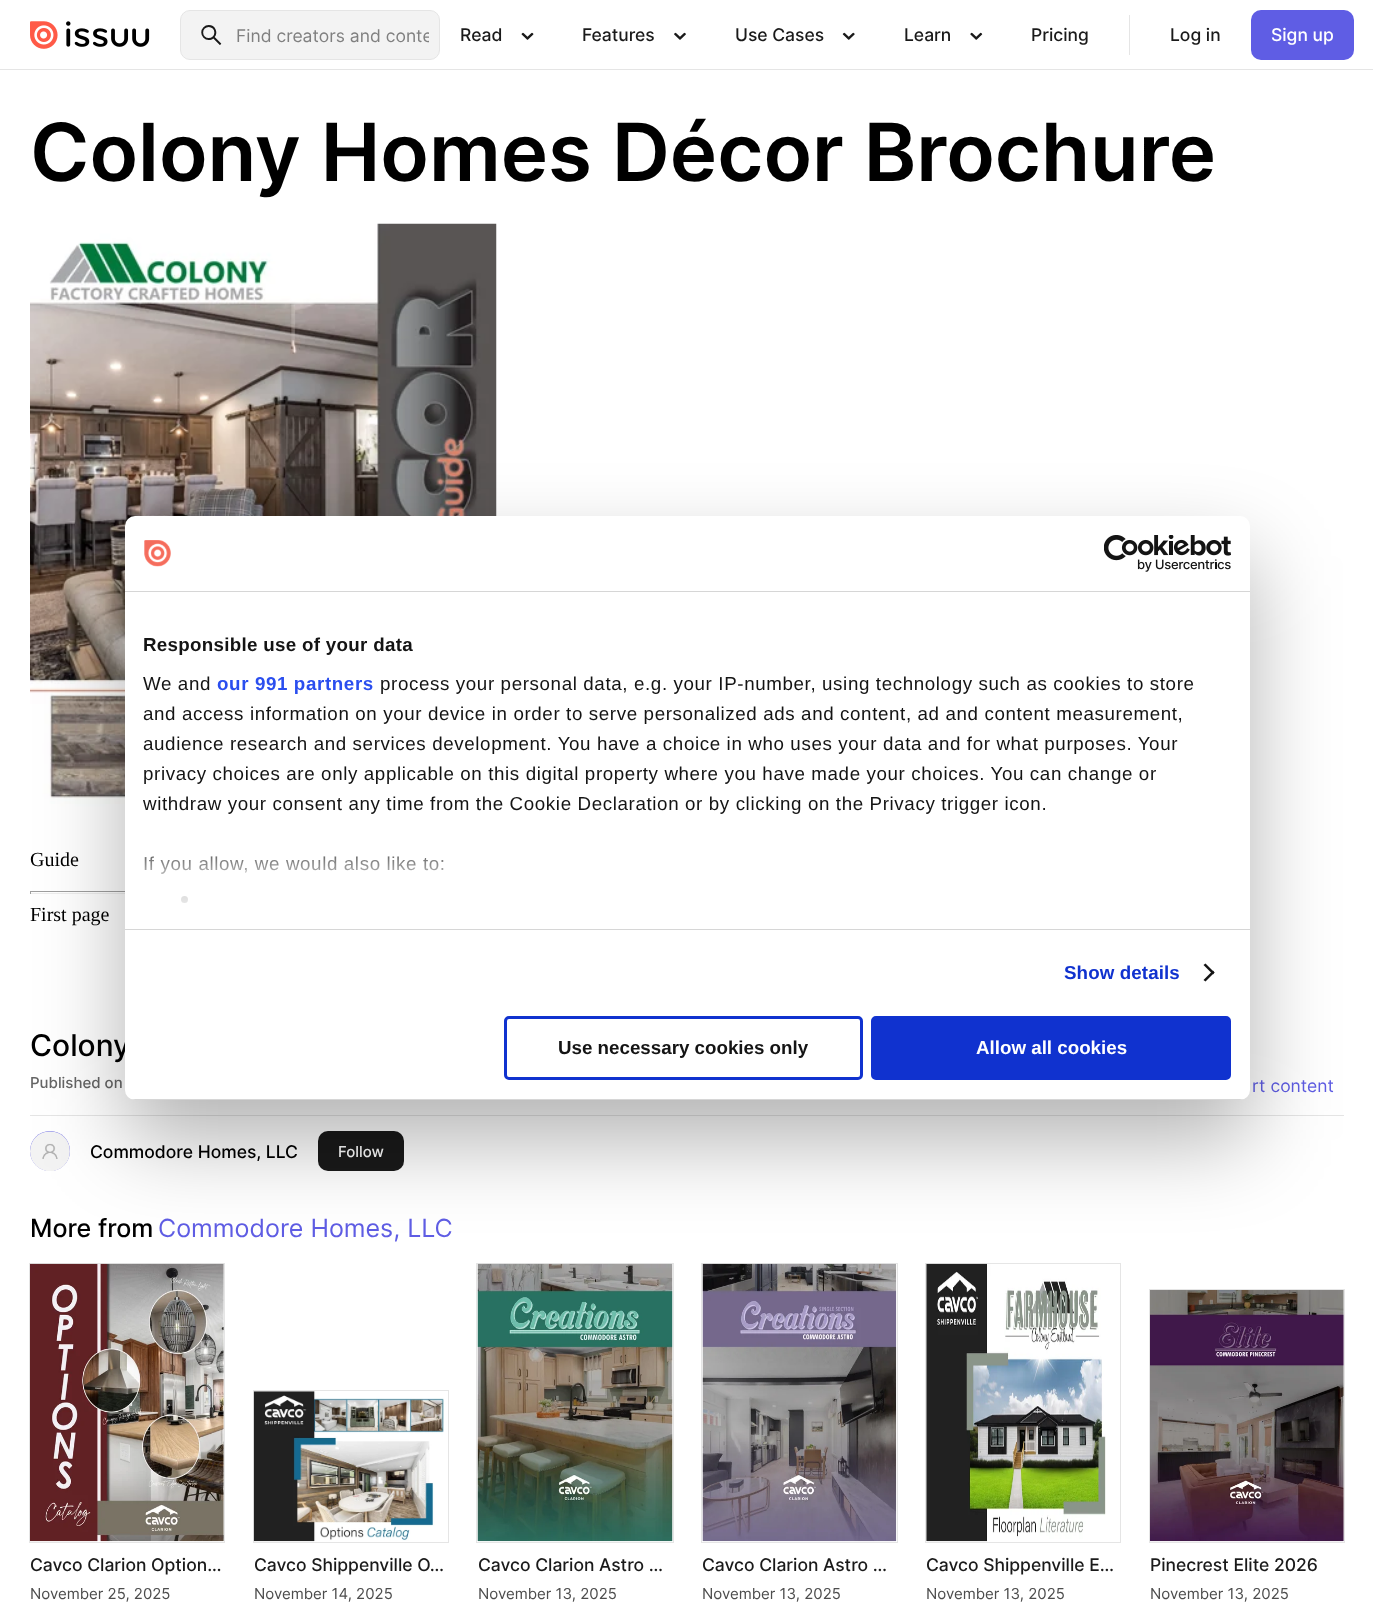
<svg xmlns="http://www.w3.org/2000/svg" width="1373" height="1614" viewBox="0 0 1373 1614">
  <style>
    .t1 { font: 17.5px Inter; fill: #808080; }
    .t2 { font: 500 17.5px Inter; fill: #1a1a1a; }
    .t3 { font: 500 17.5px Inter; fill: #fff; }
    .t4 { font: 600 80px Inter; fill: #000; }
    .t5 { font: 20px Liberation Serif; fill: #000; }
    .t6 { font: 500 30px Inter; fill: #000; }
    .t7 { font: 500 15px Inter; fill: #666; }
    .t8 { font: 17.5px Inter; fill: #5f5de4; }
    .t9 { font: 500 17.5px Inter; fill: #000; }
    .t10 { font: 500 15px Inter; fill: #fff; }
    .t11 { font: 500 25px Inter; fill: #000; }
    .t12 { font: 25px Inter; fill: #5f5de4; }
    .t13 { font: 15px Inter; fill: #4d4d4d; }
    .t14 { font: bold 18.75px Liberation Sans; letter-spacing: 0.3px; fill: #141414; }
    .t15 { font: 18.75px Liberation Sans; letter-spacing: 0.62px; fill: #141414; }
    .t16 { font: bold 18.75px Liberation Sans; letter-spacing: 0.62px; fill: #2a4eef; }
    .t17 { font: bold 18.75px Liberation Sans; letter-spacing: 0.1px; fill: #1032cf; }
    .t18 { font: bold 18.75px Liberation Sans; fill: #141414; }
    .t19 { font: bold 18.75px Liberation Sans; fill: #fff; }
  </style>
  <defs>
    <clipPath id="clip1"><rect x="236" y="25" width="193" height="21"/></clipPath>
    <linearGradient id="g1" gradientUnits="userSpaceOnUse" x1="679" y1="928" x2="679" y2="834"><stop offset="0" stop-color="#fff"/><stop offset="0.5" stop-color="#fff" stop-opacity="0.8"/><stop offset="1" stop-color="#fff" stop-opacity="0"/></linearGradient>
    <clipPath id="clip2"><rect x="125" y="516" width="1125" height="584" rx="10"/></clipPath>
  </defs>
  <rect width="100%" height="100%" fill="#fff"/>
  <rect x="0" y="69" width="1373" height="1" fill="#e5e5e5"/>
  <image x="30" y="21" width="120" height="28" href="images/1.png"/>
  <rect x="180.5" y="10.5" width="259" height="49" rx="9.5" fill="#f3f3f3" stroke="#e5e5e5"/>
  <image x="201" y="25" width="21" height="20" href="images/2.png"/>
  <g clip-path="url(#clip1)">
    <text x="236" y="42" class="t1">Find creators and conte</text>
  </g>
  <text x="460" y="41" class="t2">Read</text>
  <image x="521" y="32" width="13" height="8" href="images/3.png"/>
  <text x="582" y="41" class="t2">Features</text>
  <image x="674" y="32" width="12" height="8" href="images/4.png"/>
  <text x="735" y="41" class="t2">Use Cases</text>
  <image x="842" y="32" width="13" height="8" href="images/5.png"/>
  <text x="904" y="41" class="t2">Learn</text>
  <image x="970" y="32" width="13" height="8" href="images/6.png"/>
  <text x="1031" y="41" class="t2">Pricing</text>
  <rect x="1129" y="15" width="1" height="40" fill="#e5e5e5"/>
  <text x="1170" y="41" class="t2">Log in</text>
  <rect x="1251" y="10" width="103" height="50" rx="10" fill="#5f5de4"/>
  <text x="1271" y="41" class="t3">Sign up</text>
  <text x="30" y="181" class="t4">Colony Homes Décor Brochure</text>
  <image x="30" y="223" width="467" height="588" href="images/7.png"/>
  <text x="30" y="866" class="t5">Guide</text>
  <rect x="30" y="891" width="95" height="1" fill="#9f9f9f"/>
  <rect x="30" y="893" width="95" height="1" fill="#eee"/>
  <rect x="30" y="891" width="1" height="3" fill="#9f9f9f"/>
  <text x="30" y="921" class="t5">First page</text>
  <text x="30" y="1056" class="t6">Colony</text>
  <text x="30" y="1088" class="t7">Published on</text>
  <text x="1252" y="1092" class="t8">rt content</text>
  <rect x="30" y="1115" width="1314" height="1" fill="#e5e5e5"/>
  <circle cx="50" cy="1151" r="20" fill="#5f5de4"/>
  <image x="30" y="1131" width="40" height="40" href="images/8.png"/>
  <text x="90" y="1158" class="t9">Commodore Homes, LLC</text>
  <rect x="318" y="1131" width="86" height="40" rx="10" fill="#1a1a1a"/>
  <text x="338" y="1157" class="t10">Follow</text>
  <text x="30" y="1237" class="t11">More from</text>
  <text x="158" y="1237" class="t12">Commodore Homes, LLC</text>
  <rect x="29.5" y="1263.5" width="195" height="279" fill="none" stroke="#e5e5e5"/>
  <image x="30" y="1263" width="194" height="279" href="images/9.png"/>
  <text x="30" y="1571" class="t2">Cavco Clarion Option…</text>
  <text x="30" y="1599" class="t13">November 25, 2025</text>
  <rect x="253.5" y="1390.5" width="195" height="152" fill="none" stroke="#e5e5e5"/>
  <image x="253" y="1391" width="191" height="151" href="images/10.png"/>
  <text x="254" y="1571" class="t2">Cavco Shippenville O…</text>
  <text x="254" y="1599" class="t13">November 14, 2025</text>
  <rect x="476.5" y="1263.5" width="197" height="279" fill="none" stroke="#e5e5e5"/>
  <image x="477" y="1263" width="196" height="279" href="images/11.png"/>
  <text x="478" y="1571" class="t2">Cavco Clarion Astro …</text>
  <text x="478" y="1599" class="t13">November 13, 2025</text>
  <rect x="701.5" y="1263.5" width="196" height="279" fill="none" stroke="#e5e5e5"/>
  <image x="702" y="1263" width="195" height="279" href="images/12.png"/>
  <text x="702" y="1571" class="t2">Cavco Clarion Astro …</text>
  <text x="702" y="1599" class="t13">November 13, 2025</text>
  <rect x="925.5" y="1263.5" width="195" height="279" fill="none" stroke="#e5e5e5"/>
  <image x="926" y="1263" width="180" height="279" href="images/13.png"/>
  <text x="926" y="1571" class="t2">Cavco Shippenville E…</text>
  <text x="926" y="1599" class="t13">November 13, 2025</text>
  <rect x="1149.5" y="1289.5" width="195" height="253" fill="none" stroke="#e5e5e5"/>
  <image x="1150" y="1290" width="194" height="252" href="images/14.png"/>
  <text x="1150" y="1571" class="t2">Pinecrest Elite 2026</text>
  <text x="1150" y="1599" class="t13">November 13, 2025</text>
  <rect x="125" y="556" width="1125" height="584" rx="10" fill="#0000004d" filter="blur(42.5px)"/>
  <rect x="125" y="516" width="1125" height="584" rx="10" fill="#fff"/>
  <rect x="125" y="591" width="1125" height="1" fill="#d6d6d6"/>
  <image x="144" y="540" width="27" height="27" href="images/15.png"/>
  <image x="1104" y="535" width="127" height="37" href="images/16.png"/>
  <rect x="125" y="929" width="1125" height="1" fill="#d6d6d6"/>
  <text x="143" y="651" class="t14">Responsible use of your data</text>
  <text x="143" y="690" class="t15">We and</text>
  <text x="217" y="690" class="t16">our 991 partners</text>
  <text x="380" y="690" class="t15">process your personal data, e.g. your IP-number, using technology such as cookies to store</text>
  <text x="143" y="720" class="t15">and access information on your device in order to serve personalized ads and content, ad and content measurement,</text>
  <text x="143" y="750" class="t15">audience research and services development. You have a choice in who uses your data and for what purposes. Your</text>
  <text x="143" y="780" class="t15">privacy choices are only applicable on this digital property where you have made your choices. You can change or</text>
  <text x="143" y="810" class="t15">withdraw your consent any time from the Cookie Declaration or by clicking on the Privacy trigger icon.</text>
  <text x="143" y="870" class="t15">If you allow, we would also like to:</text>
  <circle cx="184.5" cy="899.5" r="3.5" fill="#141414"/>
  <rect x="144" y="856" width="300" height="47" fill="url(#g1)"/>
  <text x="1064" y="979" class="t17">Show details</text>
  <path d="M1205.5 963.5L1214.5 972.5L1213 974.5L1203.5 965Z" fill="#141414"/>
  <path d="M1213 970.5L1214.5 972.5L1205.5 981.5L1203.5 980Z" fill="#141414"/>
  <g clip-path="url(#clip2)">
    <rect x="125" y="1099" width="1125" height="1" fill="#d6d6d6"/>
  </g>
  <rect x="505.5" y="1017.5" width="356" height="61" rx="3.5" fill="none" stroke="#1032cf" stroke-width="3"/>
  <text x="558" y="1054" class="t18">Use necessary cookies only</text>
  <rect x="872.5" y="1017.5" width="357" height="61" rx="3.5" fill="#1032cf" stroke="#1032cf" stroke-width="3"/>
  <text x="976" y="1054" class="t19">Allow all cookies</text>
</svg>
